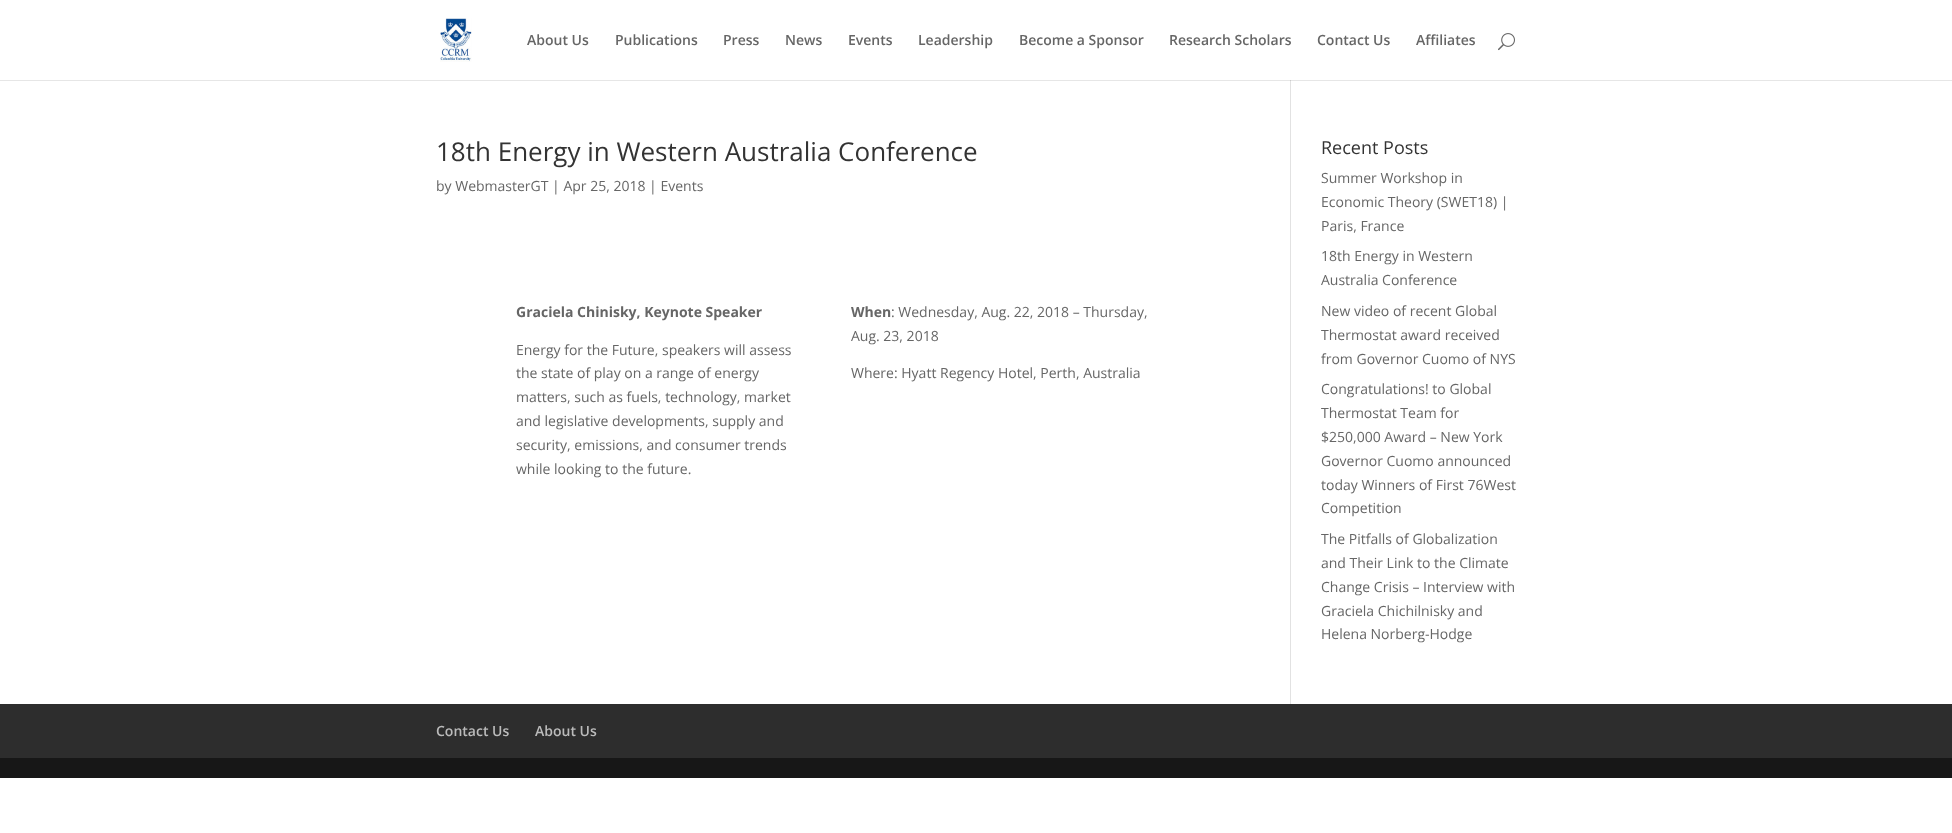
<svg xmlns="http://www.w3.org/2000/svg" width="1952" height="833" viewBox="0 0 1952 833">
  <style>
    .t1 { font: 600 14px Open Sans; fill: #666; }
    .t2 { font: 26px Open Sans; fill: #333; }
    .t3 { font: 14px Open Sans; fill: #666; }
    .t4 { font: bold 14px Open Sans; fill: #666; }
    .t5 { font: 18px Open Sans; fill: #333; }
    .t6 { font: 600 14px Open Sans; fill: #bbb; }
  </style>
  <rect width="100%" height="100%" fill="#fff"/>
  <rect x="0" y="80" width="1952" height="1" fill="#e6e6e6"/>
  <image x="440" y="18" width="32" height="44" href="images/1.png"/>
  <text x="527" y="45" class="t1">About Us</text>
  <text x="615" y="45" class="t1">Publications</text>
  <text x="723" y="45" class="t1">Press</text>
  <text x="785" y="45" class="t1">News</text>
  <text x="848" y="45" class="t1">Events</text>
  <text x="918" y="45" class="t1">Leadership</text>
  <text x="1019" y="45" class="t1">Become a Sponsor</text>
  <text x="1169" y="45" class="t1">Research Scholars</text>
  <text x="1317" y="45" class="t1">Contact Us</text>
  <text x="1416" y="45" class="t1">Affiliates</text>
  <image x="1498" y="33" width="17" height="18" href="images/2.png"/>
  <rect x="1290" y="80" width="1" height="624" fill="#e2e2e2"/>
  <rect x="1290" y="80" width="1" height="1" fill="#cbcbcb"/>
  <text x="436" y="161" class="t2">18th Energy in Western Australia Conference</text>
  <text x="436" y="191" class="t3">by WebmasterGT | Apr 25, 2018 | Events</text>
  <text x="516" y="317" class="t4">Graciela Chinisky, Keynote Speaker</text>
  <text x="516" y="355" class="t3">Energy for the Future, speakers will assess</text>
  <text x="516" y="378" class="t3">the state of play on a range of energy</text>
  <text x="516" y="402" class="t3">matters, such as fuels, technology, market</text>
  <text x="516" y="426" class="t3">and legislative developments, supply and</text>
  <text x="516" y="450" class="t3">security, emissions, and consumer trends</text>
  <text x="516" y="474" class="t3">while looking to the future.</text>
  <text x="851" y="317" class="t4">When</text>
  <text x="891" y="317" class="t3">: Wednesday, Aug. 22, 2018 – Thursday,</text>
  <text x="851" y="341" class="t3">Aug. 23, 2018</text>
  <text x="851" y="378" class="t3">Where: Hyatt Regency Hotel, Perth, Australia</text>
  <text x="1321" y="154" class="t5">Recent Posts</text>
  <text x="1321" y="183" class="t3">Summer Workshop in</text>
  <text x="1321" y="207" class="t3">Economic Theory (SWET18) |</text>
  <text x="1321" y="231" class="t3">Paris, France</text>
  <text x="1321" y="261" class="t3">18th Energy in Western</text>
  <text x="1321" y="285" class="t3">Australia Conference</text>
  <text x="1321" y="316" class="t3">New video of recent Global</text>
  <text x="1321" y="340" class="t3">Thermostat award received</text>
  <text x="1321" y="364" class="t3">from Governor Cuomo of NYS</text>
  <text x="1321" y="394" class="t3">Congratulations! to Global</text>
  <text x="1321" y="418" class="t3">Thermostat Team for</text>
  <text x="1321" y="442" class="t3">$250,000 Award – New York</text>
  <text x="1321" y="466" class="t3">Governor Cuomo announced</text>
  <text x="1321" y="490" class="t3">today Winners of First 76West</text>
  <text x="1321" y="513" class="t3">Competition</text>
  <text x="1321" y="544" class="t3">The Pitfalls of Globalization</text>
  <text x="1321" y="568" class="t3">and Their Link to the Climate</text>
  <text x="1321" y="592" class="t3">Change Crisis – Interview with</text>
  <text x="1321" y="616" class="t3">Graciela Chichilnisky and</text>
  <text x="1321" y="639" class="t3">Helena Norberg-Hodge</text>
  <rect x="0" y="704" width="1952" height="54" fill="#2d2d2d"/>
  <text x="436" y="736" class="t6">Contact Us</text>
  <text x="535" y="736" class="t6">About Us</text>
  <rect x="0" y="758" width="1952" height="20" fill="#171717"/>
</svg>
